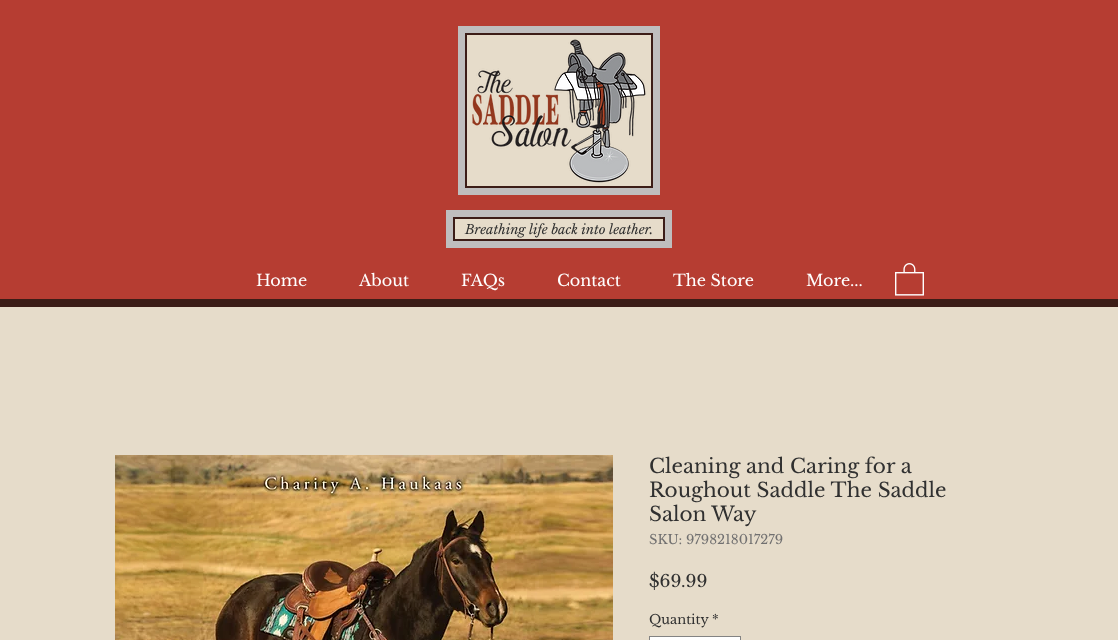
<svg xmlns="http://www.w3.org/2000/svg" width="1118" height="640" viewBox="0 0 1118 640">
  <style>
    .t1 { font: italic 13px Libre Baskerville; fill: #303030; }
    .t2 { font: 16px Libre Baskerville; fill: #fff; }
    .t3 { font: 20px Libre Baskerville; fill: #303030; }
    .t4 { font: 13px Libre Baskerville; fill: #717070; }
    .t5 { font: 17px Libre Baskerville; fill: #303030; }
    .t6 { font: 13px Libre Baskerville; fill: #303030; }
  </style>
  <rect width="100%" height="100%" fill="#e6dcca"/>
  <rect x="0" y="0" width="1118" height="299" fill="#b63d32"/>
  <rect x="0" y="299" width="1118" height="8" fill="#3c1d17"/>
  <rect x="458" y="26" width="202" height="169" fill="#bfbebe"/>
  <rect x="466" y="34" width="186" height="153" fill="#e6dcca" stroke="#3c1d17" stroke-width="2"/>
  <image x="472" y="39" width="174" height="144" href="images/1.png"/>
  <rect x="446" y="210" width="226" height="38" fill="#bfbebe"/>
  <rect x="454" y="218" width="210" height="22" fill="#e6dcca" stroke="#3c1d17" stroke-width="2"/>
  <text x="465" y="234" class="t1">Breathing life back into leather.</text>
  <text x="256" y="286" class="t2">Home</text>
  <text x="359" y="286" class="t2">About</text>
  <text x="461" y="286" class="t2">FAQs</text>
  <text x="557" y="286" class="t2">Contact</text>
  <text x="673" y="286" class="t2">The Store</text>
  <text x="806" y="286" class="t2">More...</text>
  <image x="895" y="263" width="29" height="33" href="images/2.png"/>
  <image x="115" y="455" width="498" height="185" href="images/3.png"/>
  <text x="649" y="473" class="t3">Cleaning and Caring for a</text>
  <text x="649" y="497" class="t3">Roughout Saddle The Saddle</text>
  <text x="649" y="521" class="t3">Salon Way</text>
  <text x="649" y="544" class="t4">SKU: 9798218017279</text>
  <text x="649" y="587" class="t5">$69.99</text>
  <text x="649" y="624" class="t6">Quantity *</text>
  <rect x="649.5" y="636.5" width="91" height="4" fill="#fff" stroke="#838383"/>
</svg>
